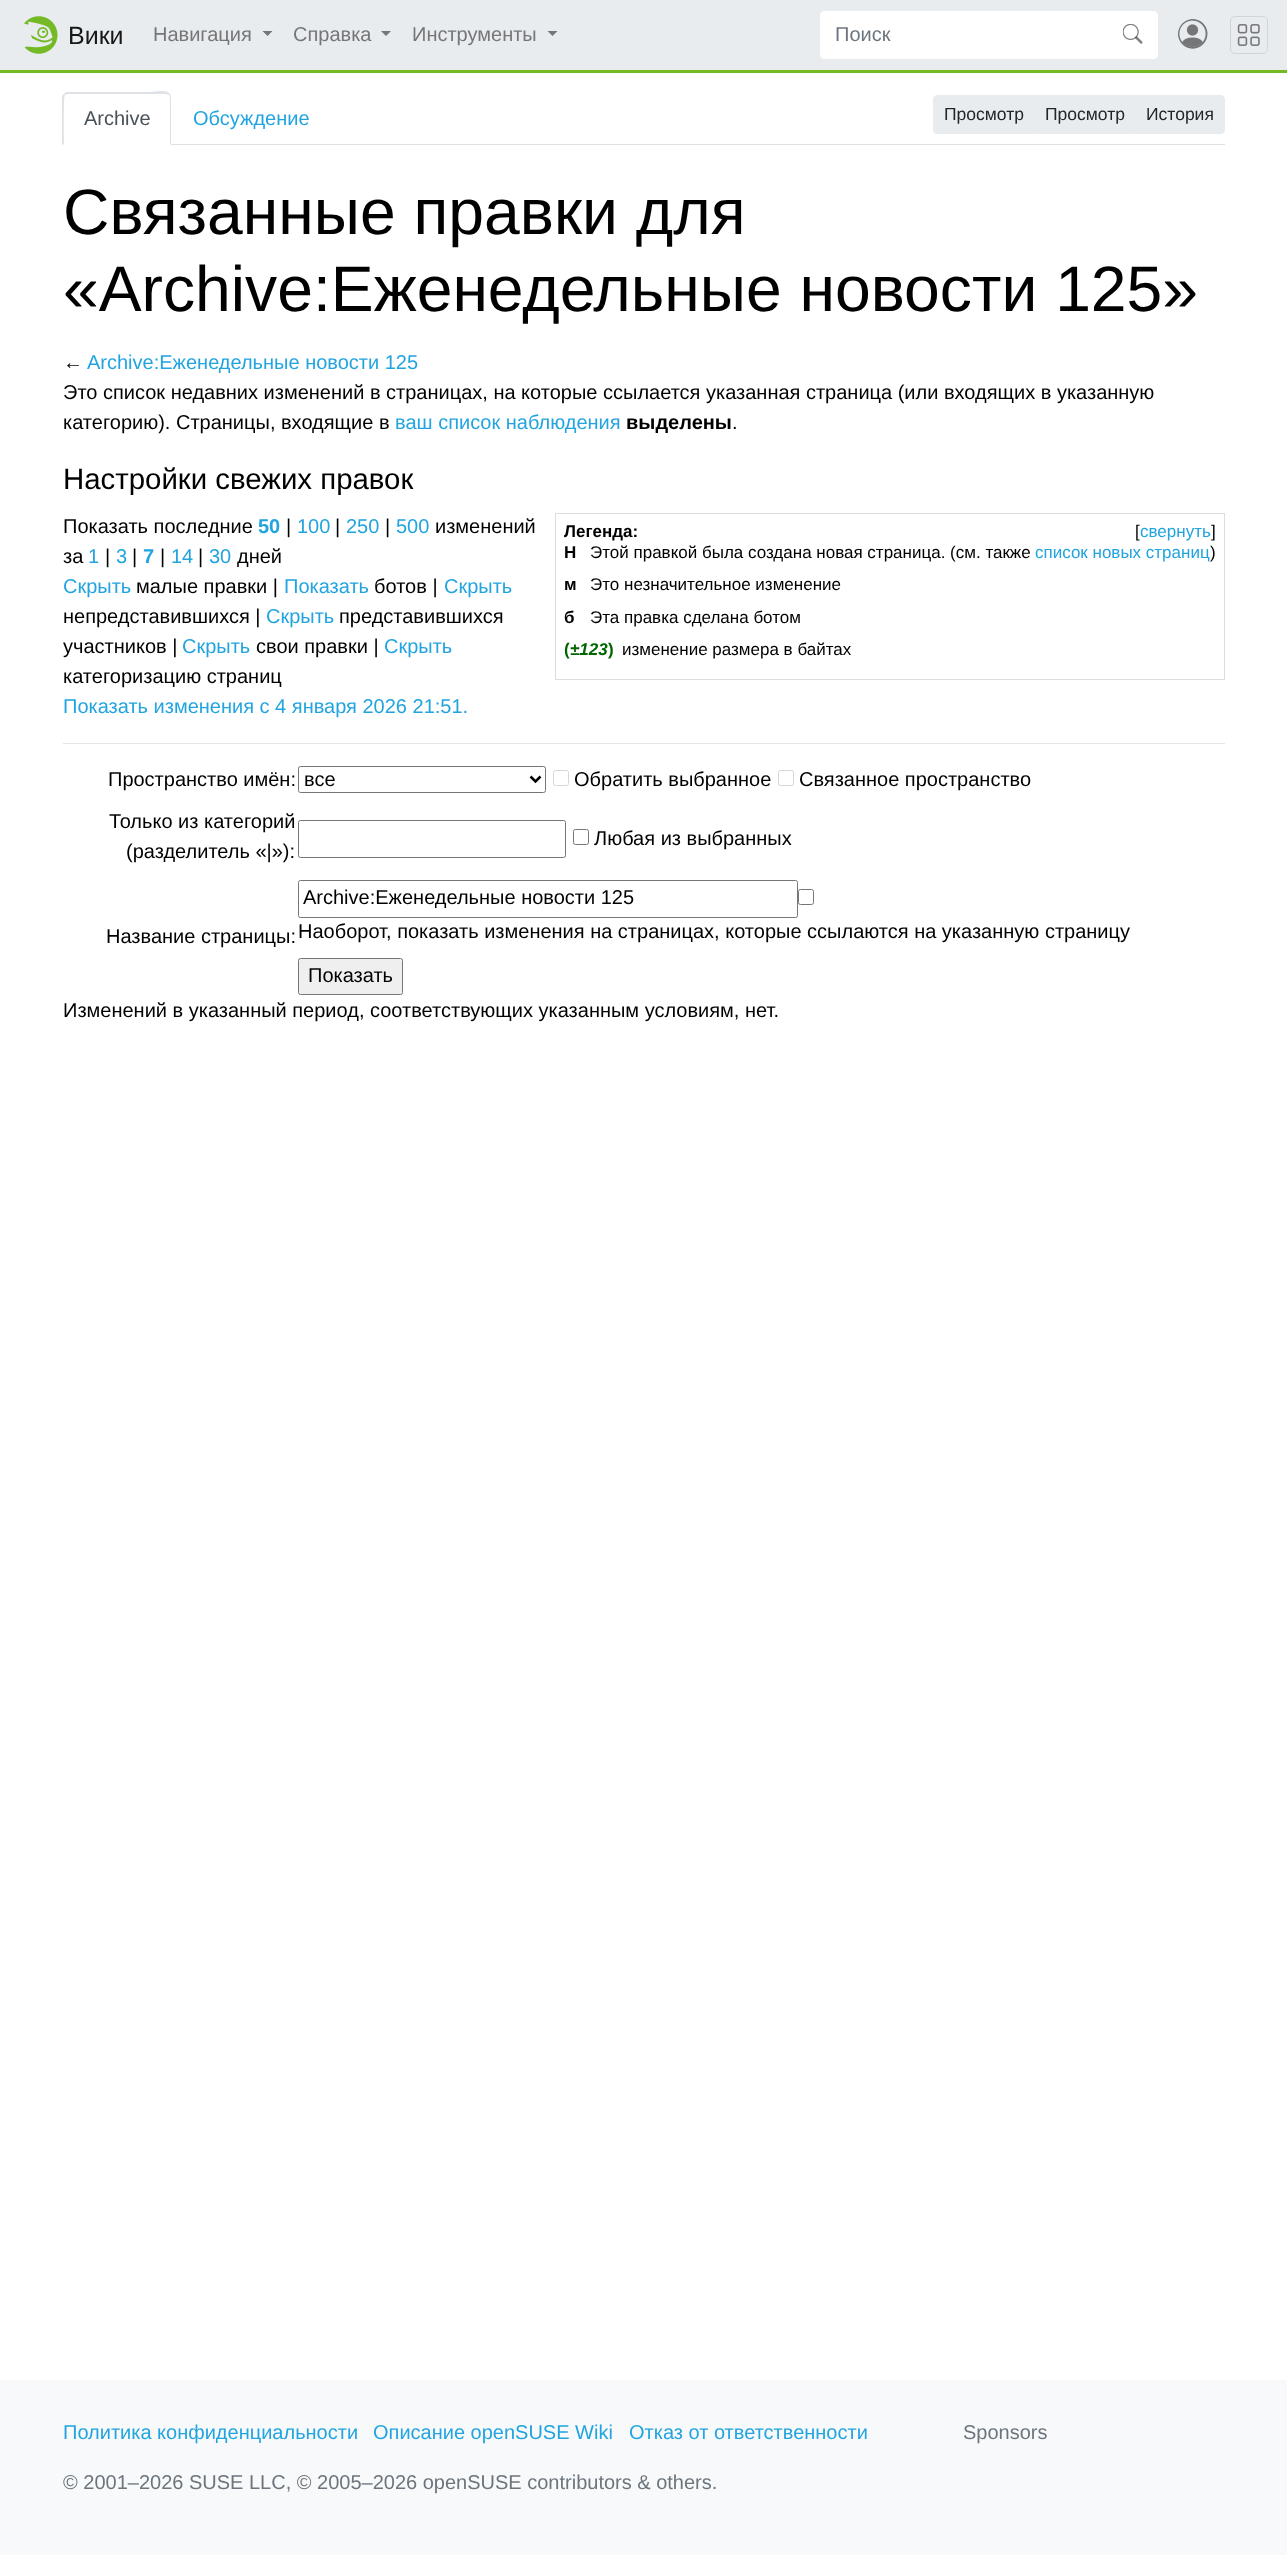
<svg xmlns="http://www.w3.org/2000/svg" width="1287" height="2555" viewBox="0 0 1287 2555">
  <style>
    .t1 { font: 25px Liberation Sans; fill: #171818; }
    .t2 { font: 20px Liberation Sans; fill: #757678; }
    .t3 { font: 20px Liberation Sans; fill: #6c757d; }
    .t4 { font: 20px Liberation Sans; fill: #495057; }
    .t5 { font: 20px Liberation Sans; fill: #21a4df; }
    .t6 { font: 17.5px Liberation Sans; fill: #212529; }
    .t7 { font: 64.25px Liberation Sans; fill: #000; }
    .t8 { font: 20px Liberation Sans; fill: #000; }
    .t9 { font: bold 20px Liberation Sans; fill: #000; }
    .t10 { font: 29.4px Liberation Sans; fill: #000; }
    .t11 { font: bold 20px Liberation Sans; fill: #21a4df; }
    .t12 { font: bold 17px Liberation Sans; fill: #000; }
    .t13 { font: 17px Liberation Sans; fill: #000; }
    .t14 { font: 17px Liberation Sans; fill: #21a4df; }
    .t15 { font: bold 17px Liberation Sans; fill: #006400; }
    .t16 { font: italic bold 17px Liberation Sans; fill: #006400; }
  </style>
  <rect width="100%" height="100%" fill="#fff"/>
  <rect x="0" y="0" width="1287" height="70" fill="#e9ecef"/>
  <rect x="0" y="70" width="1287" height="3" fill="#73ba25"/>
  <image x="24" y="16" width="34" height="38" href="images/1.png"/>
  <text x="68" y="44" class="t1">Вики</text>
  <text x="153" y="41" class="t2">Навигация</text>
  <path d="M262.5 31H272.5L267.5 36Z" fill="#757678"/>
  <text x="293" y="41" class="t2">Справка</text>
  <path d="M381 31H391L386 36Z" fill="#757678"/>
  <text x="412" y="41" class="t2">Инструменты</text>
  <path d="M547.5 31H557.5L552.5 36Z" fill="#757678"/>
  <path d="M825 11H1109V59H825C822 59 820 57 820 54V16C820 13 822 11 825 11Z" fill="#fff"/>
  <text x="835" y="41" class="t3">Поиск</text>
  <path d="M1108 11H1153C1156 11 1158 13 1158 16V54C1158 57 1156 59 1153 59H1108Z" fill="#fff"/>
  <image x="1123" y="24" width="20" height="20" href="images/2.png"/>
  <image x="1178" y="19" width="30" height="30" href="images/3.png"/>
  <rect x="1230.5" y="16.5" width="37" height="37" rx="4.5" fill="none" stroke="#d2d4d7"/>
  <image x="1237" y="24" width="23" height="22" href="images/4.png"/>
  <rect x="171" y="144" width="1054" height="1" fill="#dee2e6"/>
  <path d="M68 94L65 95L64 94L66 92H151C154 92 166 89 170 94L169 95L166 94Z" fill="#dee2e6"/>
  <path d="M170 94C171 95 171 97 171 98V145L170 144V97L169 95Z" fill="#dee2e6"/>
  <path d="M62 145H171L170 144H64Z" fill="#fff"/>
  <path d="M62 145V96L64 94L65 95C63 97 64 138 64 144Z" fill="#dee2e6"/>
  <text x="84" y="125" class="t4">Archive</text>
  <text x="193" y="125" class="t5">Обсуждение</text>
  <path d="M937 95.5H1034.5V133.5H937C935 133.5 933.5 132 933.5 130V99C933.5 97 935 95.5 937 95.5Z" fill="#e9ecef" stroke="#e9ecef"/>
  <text x="944" y="120" class="t6">Просмотр</text>
  <rect x="1035" y="95" width="100" height="39" fill="#e9ecef"/>
  <text x="1045" y="120" class="t6">Просмотр</text>
  <path d="M1135.5 95.5H1221C1223 95.5 1224.5 97 1224.5 99V130C1224.5 132 1223 133.5 1221 133.5H1135.5Z" fill="#e9ecef" stroke="#e9ecef"/>
  <text x="1146" y="120" class="t6">История</text>
  <text x="63" y="234" class="t7">Связанные правки для</text>
  <text x="63" y="311" class="t7">«Archive:Еженедельные новости 125»</text>
  <text x="63" y="369" class="t8">←</text>
  <text x="87" y="369" class="t5">Archive:Еженедельные новости 125</text>
  <text x="63" y="399" class="t8">Это список недавних изменений в страницах, на которые ссылается указанная страница (или входящих в указанную</text>
  <text x="63" y="429" class="t8">категорию). Страницы, входящие в</text>
  <text x="395" y="429" class="t5">ваш список наблюдения</text>
  <text x="626" y="429" class="t9">выделены</text>
  <text x="732" y="429" class="t8">.</text>
  <text x="63" y="489" class="t10">Настройки свежих правок</text>
  <text x="63" y="533" class="t8">Показать последние</text>
  <text x="258" y="533" class="t11">50</text>
  <text x="286" y="533" class="t8">|</text>
  <text x="297" y="533" class="t5">100</text>
  <text x="335" y="533" class="t8">|</text>
  <text x="346" y="533" class="t5">250</text>
  <text x="385" y="533" class="t8">|</text>
  <text x="396" y="533" class="t5">500</text>
  <text x="435" y="533" class="t8">изменений</text>
  <rect x="555.5" y="513.5" width="669" height="166" fill="none" stroke="#ddd"/>
  <text x="564" y="537" class="t12">Легенда:</text>
  <text x="1135" y="537" class="t13">[</text>
  <text x="1140" y="537" class="t14">свернуть</text>
  <text x="1211" y="537" class="t13">]</text>
  <text x="564" y="558" class="t12">Н</text>
  <text x="590" y="558" class="t13">Этой правкой была создана новая страница. (см. также</text>
  <text x="1035" y="558" class="t14">список новых страниц</text>
  <text x="1210" y="558" class="t13">)</text>
  <text x="564" y="590" class="t12">м</text>
  <text x="590" y="590" class="t13">Это незначительное изменение</text>
  <text x="564" y="623" class="t12">б</text>
  <text x="590" y="623" class="t13">Эта правка сделана ботом</text>
  <text x="564" y="655" class="t15">(</text>
  <text x="570" y="655" class="t16">±123</text>
  <text x="608" y="655" class="t15">)</text>
  <text x="622" y="655" class="t13">изменение размера в байтах</text>
  <text x="63" y="563" class="t8">за</text>
  <text x="88" y="563" class="t5">1</text>
  <text x="105" y="563" class="t8">|</text>
  <text x="116" y="563" class="t5">3</text>
  <text x="132" y="563" class="t8">|</text>
  <text x="143" y="563" class="t11">7</text>
  <text x="160" y="563" class="t8">|</text>
  <text x="171" y="563" class="t5">14</text>
  <text x="198" y="563" class="t8">|</text>
  <text x="209" y="563" class="t5">30</text>
  <text x="237" y="563" class="t8">дней</text>
  <text x="63" y="593" class="t5">Скрыть</text>
  <text x="136" y="593" class="t8">малые правки |</text>
  <text x="284" y="593" class="t5">Показать</text>
  <text x="374" y="593" class="t8">ботов |</text>
  <text x="444" y="593" class="t5">Скрыть</text>
  <text x="63" y="623" class="t8">непредставившихся |</text>
  <text x="266" y="623" class="t5">Скрыть</text>
  <text x="339" y="623" class="t8">представившихся</text>
  <text x="63" y="653" class="t8">участников |</text>
  <text x="182" y="653" class="t5">Скрыть</text>
  <text x="256" y="653" class="t8">свои правки |</text>
  <text x="384" y="653" class="t5">Скрыть</text>
  <text x="63" y="683" class="t8">категоризацию страниц</text>
  <text x="63" y="713" class="t5">Показать изменения с 4 января 2026 21:51.</text>
  <rect x="63" y="743" width="1162" height="1" fill="#e6e6e6"/>
  <text x="108" y="786" class="t8">Пространство имён:</text>
  <rect x="298.5" y="766.5" width="247" height="26" rx="2" fill="none" stroke="#767676"/>
  <path d="M530.5 776.5L535.5 781.5L540.5 776.5" fill="none" stroke="#000" stroke-width="2.5"/>
  <text x="304" y="786" class="t8">все</text>
  <rect x="553.5" y="770.5" width="15" height="15" rx="2" fill="none" stroke="#d6d6d6"/>
  <text x="574" y="786" class="t8">Обратить выбранное</text>
  <rect x="778.5" y="770.5" width="15" height="15" rx="2" fill="none" stroke="#d6d6d6"/>
  <text x="799" y="786" class="t8">Связанное пространство</text>
  <text x="109" y="828" class="t8">Только из категорий</text>
  <text x="126" y="858" class="t8">(разделитель «|»):</text>
  <rect x="298.5" y="820.5" width="267" height="37" rx="2" fill="none" stroke="#767676"/>
  <rect x="573.5" y="829.5" width="15" height="15" rx="2" fill="none" stroke="#767676"/>
  <text x="594" y="845" class="t8">Любая из выбранных</text>
  <text x="106" y="943" class="t8">Название страницы:</text>
  <rect x="298.5" y="880.5" width="499" height="37" rx="2" fill="none" stroke="#767676"/>
  <text x="303" y="904" class="t8">Archive:Еженедельные новости 125</text>
  <rect x="798.5" y="889.5" width="15" height="15" rx="2" fill="none" stroke="#767676"/>
  <text x="298" y="938" class="t8">Наоборот, показать изменения на страницах, которые ссылаются на указанную страницу</text>
  <rect x="298.5" y="958.5" width="104" height="36" rx="2" fill="#efefef" stroke="#767676"/>
  <text x="308" y="982" class="t8">Показать</text>
  <text x="63" y="1017" class="t8">Изменений в указанный период, соответствующих указанным условиям, нет.</text>
  <rect x="0" y="2380" width="1287" height="175" fill="#f8f9fa"/>
  <text x="63" y="2439" class="t5">Политика конфиденциальности</text>
  <text x="373" y="2439" class="t5">Описание openSUSE Wiki</text>
  <text x="629" y="2439" class="t5">Отказ от ответственности</text>
  <text x="63" y="2489" class="t3">© 2001–2026 SUSE LLC, © 2005–2026 openSUSE contributors &amp; others.</text>
  <text x="963" y="2439" class="t3">Sponsors</text>
</svg>
